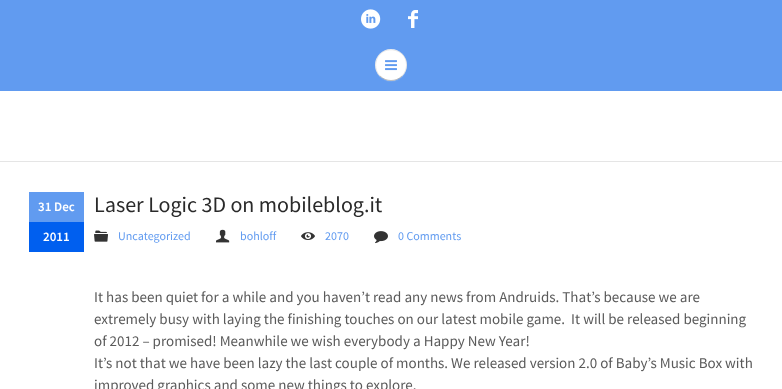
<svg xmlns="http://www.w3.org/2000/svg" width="782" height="389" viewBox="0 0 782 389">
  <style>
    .t1 { font: 600 13px Source Sans Pro; fill: #fff; }
    .t2 { font: 22px Source Sans Pro; fill: #2a2a2a; }
    .t3 { font: 12px Source Sans Pro; fill: #619bf0; }
    .t4 { font: 15px Source Sans Pro; fill: #5a5a5a; }
  </style>
  <rect width="100%" height="100%" fill="#fff"/>
  <rect x="0" y="0" width="782" height="91" fill="#619bf0"/>
  <image x="361" y="9" width="20" height="20" href="images/1.png"/>
  <image x="408" y="10" width="10" height="18" href="images/2.png"/>
  <path d="M375 65.5C374.5 81.5 395.5 88 404.5 75C406 72 407 69 407 65.5C406.5 86 375.5 86 375 65.5Z" fill="#6da3f1"/>
  <circle cx="391" cy="65" r="16" fill="#fff"/>
  <path d="M402 76C396 82 386 82 380 76" fill="none" stroke="#00000040"/>
  <path d="M380 76C376.5 72.5 375 67 376 62C379.5 44 406.5 46.5 406.5 65C406.5 69 405 73 402 76" fill="none" stroke="#0000001a"/>
  <image x="385" y="60" width="12" height="11" href="images/3.png"/>
  <rect x="0" y="161" width="782" height="1" fill="#e5e5e5"/>
  <rect x="29" y="192" width="55" height="30" fill="#619bf0"/>
  <text x="38" y="211" class="t1">31 Dec</text>
  <rect x="29" y="222" width="55" height="30" fill="#005fef"/>
  <text x="43" y="241" class="t1">2011</text>
  <text x="94" y="212" class="t2">Laser Logic 3D on mobileblog.it</text>
  <image x="94" y="230" width="14" height="12" href="images/4.png"/>
  <text x="118" y="240" class="t3">Uncategorized</text>
  <image x="216" y="229" width="14" height="14" href="images/5.png"/>
  <text x="240" y="240" class="t3">bohloff</text>
  <image x="301" y="232" width="14" height="8" href="images/6.png"/>
  <text x="325" y="240" class="t3">2070</text>
  <image x="374" y="231" width="14" height="13" href="images/7.png"/>
  <text x="398" y="240" class="t3">0 Comments</text>
  <text x="94" y="302" class="t4">It has been quiet for a while and you haven’t read any news from Andruids. That’s because we are</text>
  <text x="94" y="324" class="t4" xml:space="preserve">extremely busy with laying the finishing touches on our latest mobile game.  It will be released beginning</text>
  <text x="94" y="346" class="t4">of 2012 – promised! Meanwhile we wish everybody a Happy New Year!</text>
  <text x="94" y="368" class="t4">It’s not that we have been lazy the last couple of months. We released version 2.0 of Baby’s Music Box with</text>
  <text x="94" y="390" class="t4">improved graphics and some new things to explore.</text>
</svg>
